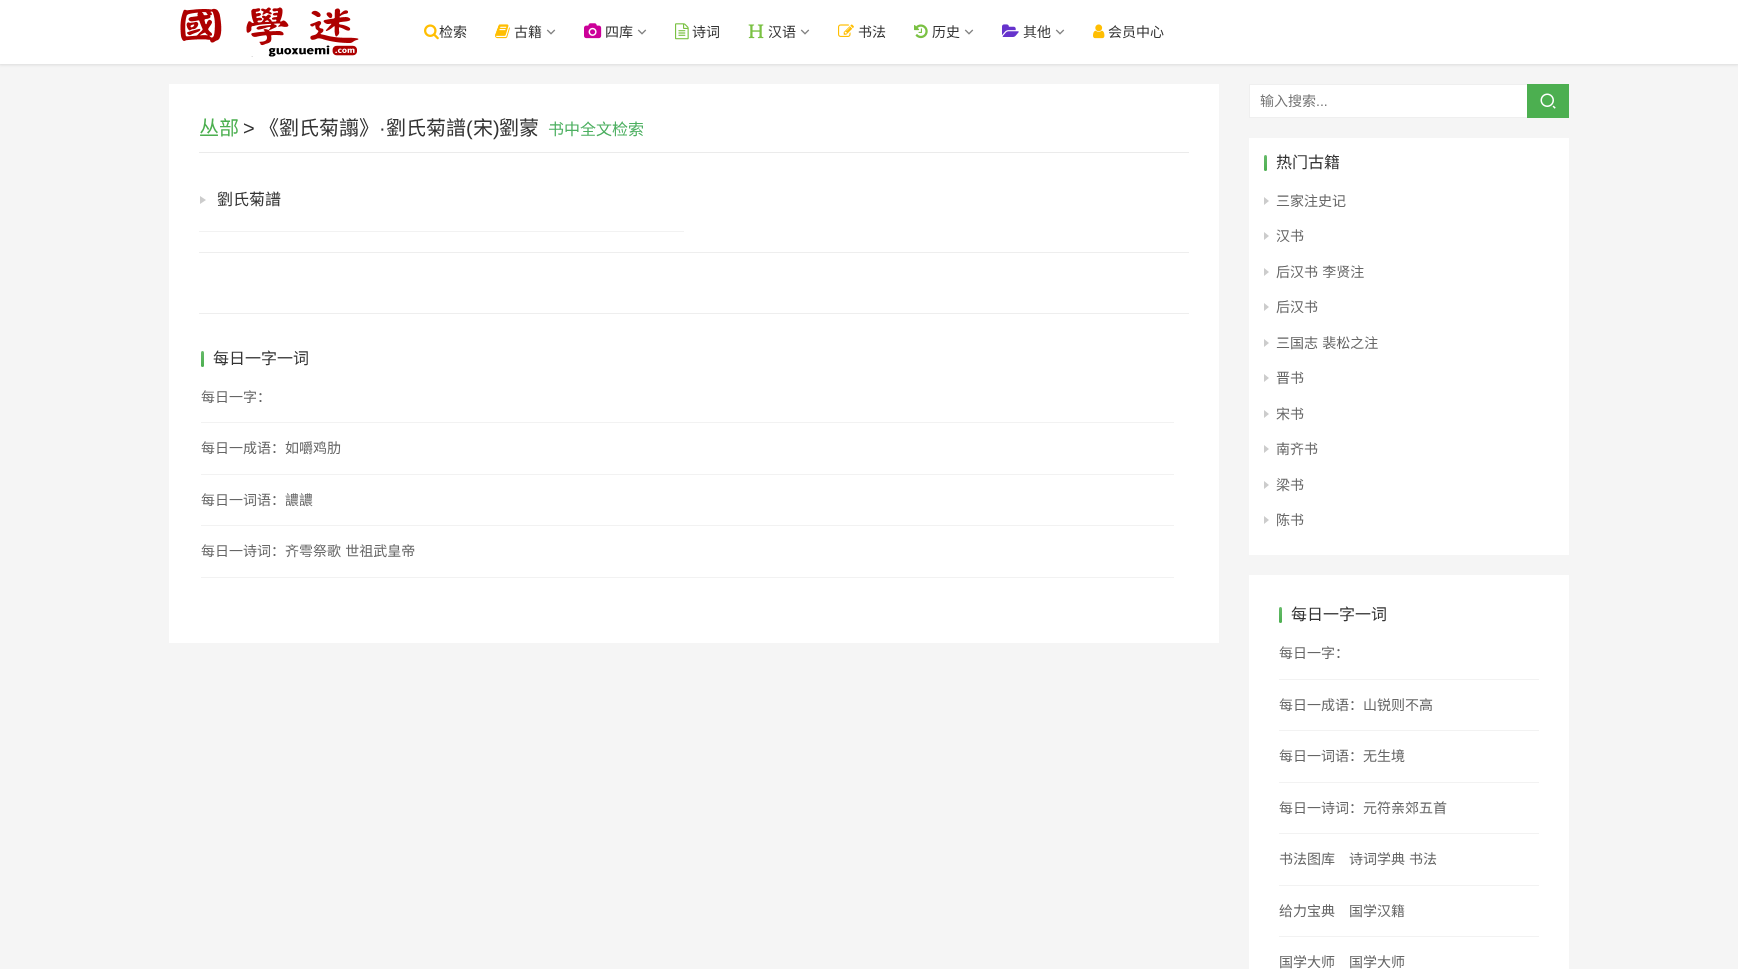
<svg xmlns="http://www.w3.org/2000/svg" width="1738" height="969" viewBox="0 0 1738 969">
  <style>
    .t1 { font: 14px Noto Sans CJK SC; fill: #333; }
    .t2 { font: 20px Noto Sans CJK SC; fill: #4caf50; }
    .t3 { font: 20px Liberation Sans; fill: #333; }
    .t4 { font: 20px Noto Sans CJK SC; fill: #333; }
    .t5 { font: 16px Noto Sans CJK SC; fill: #4caf60; }
    .t6 { font: 16px Noto Sans CJK SC; fill: #333; }
    .t7 { font: 14px Noto Sans CJK SC; fill: #666; }
    .t8 { font: 14px Noto Sans CJK SC; fill: #757575; }
    .t9 { font: 14px Liberation Sans; fill: #757575; }
  </style>
  <defs>
    <linearGradient id="g1" gradientUnits="userSpaceOnUse" x1="203" y1="351" x2="203" y2="367"><stop offset="0" stop-color="#fff" stop-opacity="0.15"/><stop offset="1" stop-color="#fff" stop-opacity="0"/></linearGradient>
    <linearGradient id="g2" gradientUnits="userSpaceOnUse" x1="1266" y1="155" x2="1266" y2="171"><stop offset="0" stop-color="#fff" stop-opacity="0.15"/><stop offset="1" stop-color="#fff" stop-opacity="0"/></linearGradient>
    <linearGradient id="g3" gradientUnits="userSpaceOnUse" x1="1281" y1="607" x2="1281" y2="623"><stop offset="0" stop-color="#fff" stop-opacity="0.15"/><stop offset="1" stop-color="#fff" stop-opacity="0"/></linearGradient>
  </defs>
  <rect width="100%" height="100%" fill="#f5f5f5"/>
  <rect x="-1" y="-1" width="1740" height="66" fill="#0000001a" filter="blur(1.5px)"/>
  <rect x="0" y="0" width="1738" height="64" fill="#fff"/>
  <image x="180" y="7" width="179" height="50" href="images/1.png"/>
  <image x="424" y="24" width="15" height="16" href="images/2.png"/>
  <text x="439" y="37" class="t1">检索</text>
  <image x="495" y="24" width="15" height="15" href="images/3.png"/>
  <text x="514" y="37" class="t1">古籍</text>
  <image x="546" y="29" width="10" height="6" href="images/4.png"/>
  <image x="584" y="23" width="18" height="16" href="images/5.png"/>
  <text x="605" y="37" class="t1">四库</text>
  <image x="637" y="29" width="10" height="6" href="images/4.png"/>
  <image x="675" y="23" width="14" height="17" href="images/6.png"/>
  <text x="692" y="37" class="t1">诗词</text>
  <image x="748" y="24" width="16" height="15" href="images/7.png"/>
  <text x="768" y="37" class="t1">汉语</text>
  <image x="800" y="29" width="10" height="6" href="images/4.png"/>
  <image x="838" y="24" width="16" height="13" href="images/8.png"/>
  <text x="858" y="37" class="t1">书法</text>
  <image x="914" y="24" width="14" height="15" href="images/9.png"/>
  <text x="932" y="37" class="t1">历史</text>
  <image x="964" y="29" width="10" height="6" href="images/4.png"/>
  <image x="1002" y="24" width="17" height="13" href="images/10.png"/>
  <text x="1023" y="37" class="t1">其他</text>
  <image x="1055" y="29" width="10" height="6" href="images/4.png"/>
  <image x="1093" y="24" width="12" height="15" href="images/11.png"/>
  <text x="1108" y="37" class="t1">会员中心</text>
  <rect x="169" y="84" width="1050" height="559" fill="#fff"/>
  <rect x="199" y="152" width="990" height="1" fill="#ebebeb"/>
  <text x="199" y="135" class="t2">丛部</text>
  <text x="243" y="135" class="t3">&gt;</text>
  <text x="259" y="135" class="t4">《劉氏菊譾》</text>
  <text x="379" y="135" class="t3">·</text>
  <text x="386" y="135" class="t4">劉氏菊譜</text>
  <text x="466" y="135" class="t3">(</text>
  <text x="473" y="135" class="t4">宋</text>
  <text x="493" y="135" class="t3">)</text>
  <text x="499" y="135" class="t4">劉蒙</text>
  <text x="548" y="135" class="t5">书中全文检索</text>
  <rect x="199" y="231" width="485" height="1" fill="#f2f2f2"/>
  <path d="M200 204V196L206 200Z" fill="#ccc"/>
  <text x="217" y="205" class="t6">劉氏菊譜</text>
  <rect x="199" y="252" width="990" height="1" fill="#eee"/>
  <rect x="199" y="313" width="990" height="1" fill="#eee"/>
  <rect x="201" y="351" width="3" height="16" rx="1.5" fill="#4caf50"/>
  <rect x="201" y="351" width="3" height="16" rx="1.5" fill="url(#g1)"/>
  <text x="213" y="364" class="t6">每日一字一词</text>
  <rect x="201" y="422" width="973" height="1" fill="#f2f2f2"/>
  <text x="201" y="402" class="t7">每日一字：</text>
  <rect x="201" y="474" width="973" height="1" fill="#f2f2f2"/>
  <text x="201" y="453" class="t7">每日一成语：如嚼鸡肋</text>
  <rect x="201" y="525" width="973" height="1" fill="#f2f2f2"/>
  <text x="201" y="505" class="t7">每日一词语：譨譨</text>
  <rect x="201" y="577" width="973" height="1" fill="#f2f2f2"/>
  <text x="201" y="556" word-spacing="1" class="t7">每日一诗词：齐雩祭歌 世祖武皇帝</text>
  <rect x="1250" y="85" width="277" height="32" fill="#fff"/>
  <rect x="1249.5" y="84.5" width="319" height="33" fill="none" stroke="#efefef"/>
  <text x="1260" y="106" class="t8">输入搜索</text>
  <text x="1316" y="106" class="t9">...</text>
  <rect x="1527" y="84" width="42" height="34" fill="#4caf50"/>
  <image x="1540" y="93" width="16" height="16" href="images/12.png"/>
  <rect x="1249" y="138" width="320" height="417" fill="#fff"/>
  <rect x="1264" y="155" width="3" height="16" rx="1.5" fill="#4caf50"/>
  <rect x="1264" y="155" width="3" height="16" rx="1.5" fill="url(#g2)"/>
  <text x="1276" y="168" class="t6">热门古籍</text>
  <path d="M1264 205V197L1269 201Z" fill="#ccc"/>
  <text x="1276" y="206" class="t7">三家注史记</text>
  <path d="M1264 240V232L1269 236Z" fill="#ccc"/>
  <text x="1276" y="241" class="t7">汉书</text>
  <path d="M1264 276V268L1269 272Z" fill="#ccc"/>
  <text x="1276" y="277" word-spacing="1" class="t7">后汉书 李贤注</text>
  <path d="M1264 311V303L1269 307Z" fill="#ccc"/>
  <text x="1276" y="312" class="t7">后汉书</text>
  <path d="M1264 347V339L1269 343Z" fill="#ccc"/>
  <text x="1276" y="348" word-spacing="1" class="t7">三国志 裴松之注</text>
  <path d="M1264 382V374L1269 378Z" fill="#ccc"/>
  <text x="1276" y="383" class="t7">晋书</text>
  <path d="M1264 418V410L1269 414Z" fill="#ccc"/>
  <text x="1276" y="419" class="t7">宋书</text>
  <path d="M1264 453V445L1269 449Z" fill="#ccc"/>
  <text x="1276" y="454" class="t7">南齐书</text>
  <path d="M1264 489V481L1269 485Z" fill="#ccc"/>
  <text x="1276" y="490" class="t7">梁书</text>
  <path d="M1264 524V516L1269 520Z" fill="#ccc"/>
  <text x="1276" y="525" class="t7">陈书</text>
  <rect x="1249" y="575" width="320" height="394" fill="#fff"/>
  <rect x="1279" y="607" width="3" height="16" rx="1.5" fill="#4caf50"/>
  <rect x="1279" y="607" width="3" height="16" rx="1.5" fill="url(#g3)"/>
  <text x="1291" y="620" class="t6">每日一字一词</text>
  <rect x="1279" y="679" width="260" height="1" fill="#f2f2f2"/>
  <text x="1279" y="658" class="t7">每日一字：</text>
  <rect x="1279" y="730" width="260" height="1" fill="#f2f2f2"/>
  <text x="1279" y="710" class="t7">每日一成语：山锐则不高</text>
  <rect x="1279" y="782" width="260" height="1" fill="#f2f2f2"/>
  <text x="1279" y="761" class="t7">每日一词语：无生境</text>
  <rect x="1279" y="833" width="260" height="1" fill="#f2f2f2"/>
  <text x="1279" y="813" class="t7">每日一诗词：元符亲郊五首</text>
  <rect x="1279" y="885" width="260" height="1" fill="#f2f2f2"/>
  <text x="1279" y="864" class="t7">书法图库</text>
  <text x="1349" y="864" class="t7">诗词学典</text>
  <text x="1409" y="864" class="t7">书法</text>
  <rect x="1279" y="936" width="260" height="1" fill="#f2f2f2"/>
  <text x="1279" y="916" class="t7">给力宝典</text>
  <text x="1349" y="916" class="t7">国学汉籍</text>
  <text x="1279" y="967" class="t7">国学大师</text>
  <text x="1349" y="967" class="t7">国学大师</text>
</svg>
